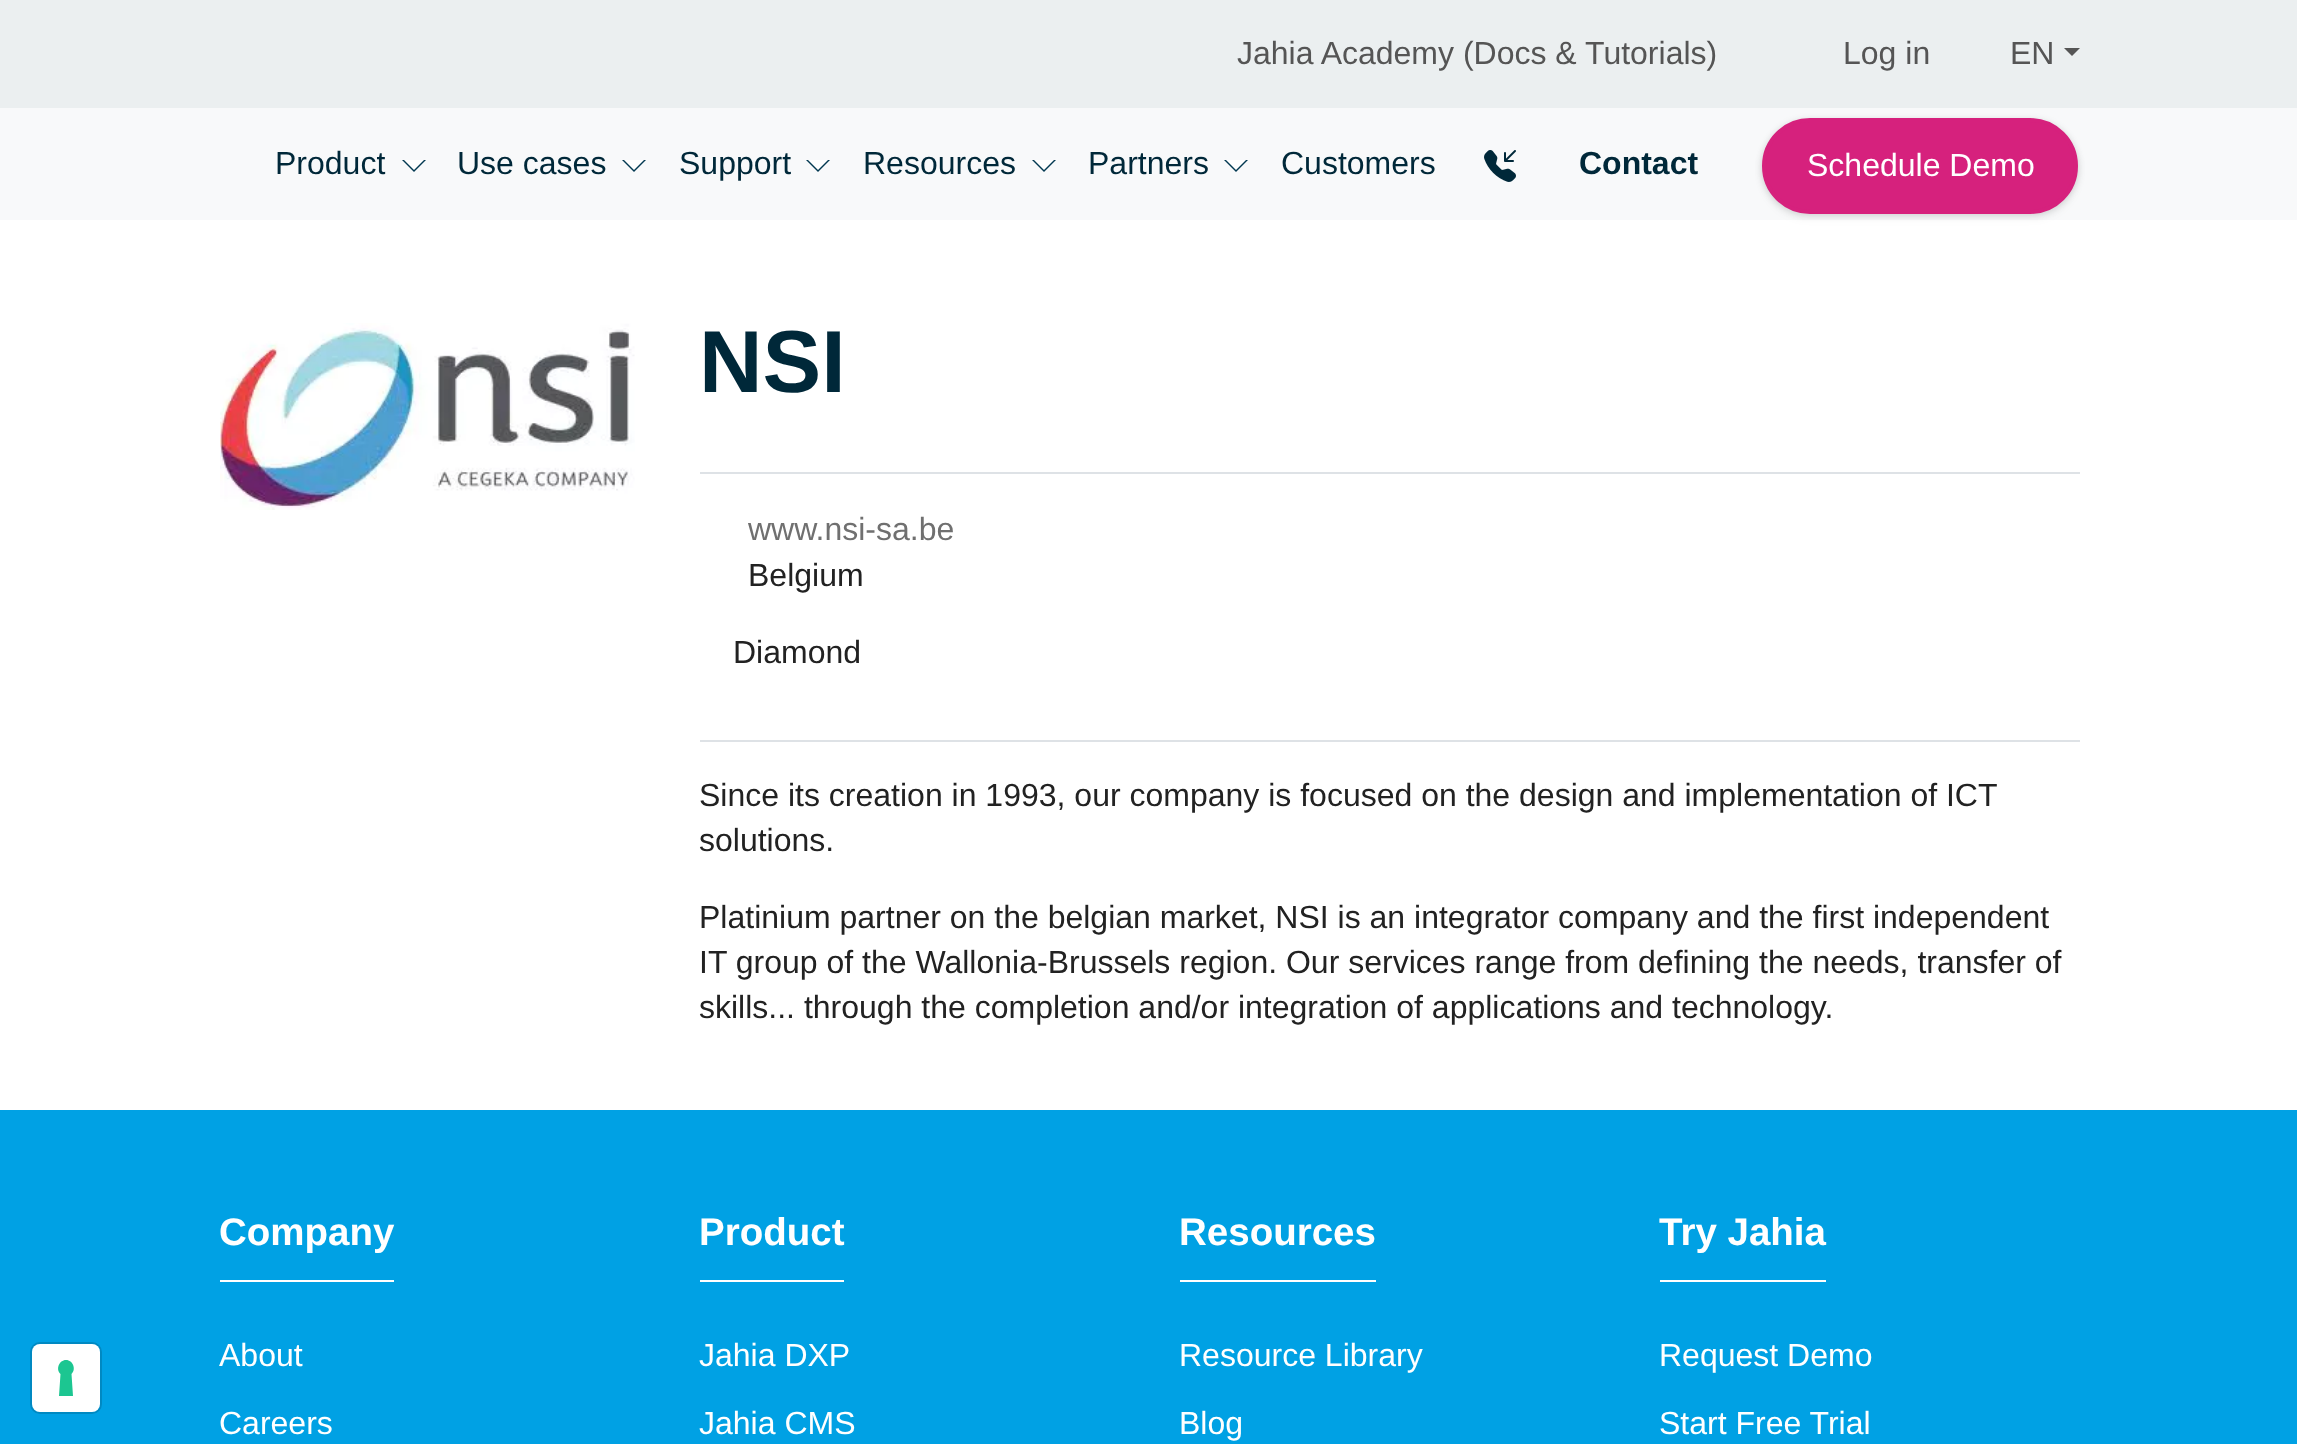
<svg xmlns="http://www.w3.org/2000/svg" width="2297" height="1444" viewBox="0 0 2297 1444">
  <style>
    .t1 { font: 32px Liberation Sans; fill: #555; }
    .t2 { font: 32px Liberation Sans; fill: #002839; }
    .t3 { font: bold 32px Liberation Sans; fill: #002839; }
    .t4 { font: 32px Liberation Sans; fill: #fff; }
    .t5 { font: bold 88px Liberation Sans; fill: #002839; }
    .t6 { font: 32px Liberation Sans; fill: #707070; }
    .t7 { font: 32px Liberation Sans; fill: #222; }
    .t8 { font: bold 38.5px Liberation Sans; fill: #fff; }
  </style>
  <rect width="100%" height="100%" fill="#fff"/>
  <rect x="0" y="0" width="2297" height="108" fill="#ebeff0"/>
  <text x="1237" y="64" class="t1">Jahia Academy (Docs &amp; Tutorials)</text>
  <text x="1843" y="64" class="t1">Log in</text>
  <text x="2010" y="64" class="t1">EN</text>
  <path d="M2064 48H2080L2072 56Z" fill="#555"/>
  <rect x="0" y="108" width="2297" height="112" fill="#f8f9fa"/>
  <text x="275" y="174" class="t2">Product</text>
  <path d="M402 160H426L414 172Z" fill="#023951"/>
  <path d="M404 160H424L414 170Z" fill="#fff"/>
  <text x="457" y="174" class="t2">Use cases</text>
  <path d="M622 160H646L634 172Z" fill="#023951"/>
  <path d="M624 160H644L634 170Z" fill="#fff"/>
  <text x="679" y="174" class="t2">Support</text>
  <path d="M806 160H830L818 172Z" fill="#023951"/>
  <path d="M808 160H828L818 170Z" fill="#fff"/>
  <text x="863" y="174" class="t2">Resources</text>
  <path d="M1032 160H1056L1044 172Z" fill="#023951"/>
  <path d="M1034 160H1054L1044 170Z" fill="#fff"/>
  <text x="1088" y="174" class="t2">Partners</text>
  <path d="M1224 160H1248L1236 172Z" fill="#023951"/>
  <path d="M1226 160H1246L1236 170Z" fill="#fff"/>
  <text x="1281" y="174" class="t2">Customers</text>
  <image x="1484" y="150" width="32" height="32" href="images/1.png"/>
  <text x="1579" y="174" class="t3">Contact</text>
  <rect x="1762" y="124" width="316" height="94" rx="47" fill="#0000000f" filter="blur(4px)"/>
  <rect x="1762" y="120" width="316" height="94" rx="47" fill="#00000024" filter="blur(3.5px)"/>
  <rect x="1764" y="120" width="312" height="92" rx="46" fill="#d6217d" stroke="#d6217d" stroke-width="4"/>
  <text x="1807" y="176" class="t4">Schedule Demo</text>
  <image x="220" y="323" width="415" height="187" href="images/2.png"/>
  <text x="699" y="392" class="t5">NSI</text>
  <rect x="700" y="472" width="1380" height="2" fill="#dee2e6"/>
  <text x="748" y="540" class="t6">www.nsi-sa.be</text>
  <text x="748" y="586" class="t7">Belgium</text>
  <text x="733" y="663" class="t7">Diamond</text>
  <rect x="700" y="740" width="1380" height="2" fill="#dee2e6"/>
  <text x="699" y="806" class="t7">Since its creation in 1993, our company is focused on the design and implementation of ICT</text>
  <text x="699" y="851" class="t7">solutions.</text>
  <text x="699" y="928" class="t7">Platinium partner on the belgian market, NSI is an integrator company and the first independent</text>
  <text x="699" y="973" class="t7">IT group of the Wallonia-Brussels region. Our services range from defining the needs, transfer of</text>
  <text x="699" y="1018" class="t7">skills... through the completion and/or integration of applications and technology.</text>
  <rect x="0" y="1110" width="2297" height="334" fill="#00a1e4"/>
  <rect x="31" y="1343" width="70" height="70" rx="9" fill="none" stroke="#0089c2" stroke-width="2"/>
  <rect x="32" y="1344" width="68" height="68" rx="8" fill="#fff"/>
  <path d="M66 1360C73 1360 76.5 1369.5 71.5 1374L73 1396H59L60.5 1374C55.5 1369.5 59 1360 66 1360Z" fill="#1cc691" fill-rule="evenodd"/>
  <rect x="220" y="1280" width="174" height="2" fill="#fff"/>
  <text x="219" y="1245" class="t8">Company</text>
  <text x="219" y="1366" class="t4">About</text>
  <text x="219" y="1434" class="t4">Careers</text>
  <rect x="700" y="1280" width="144" height="2" fill="#fff"/>
  <text x="699" y="1245" class="t8">Product</text>
  <text x="699" y="1366" class="t4">Jahia DXP</text>
  <text x="699" y="1434" class="t4">Jahia CMS</text>
  <rect x="1180" y="1280" width="196" height="2" fill="#fff"/>
  <text x="1179" y="1245" class="t8">Resources</text>
  <text x="1179" y="1366" class="t4">Resource Library</text>
  <text x="1179" y="1434" class="t4">Blog</text>
  <rect x="1660" y="1280" width="166" height="2" fill="#fff"/>
  <text x="1659" y="1245" class="t8">Try Jahia</text>
  <text x="1659" y="1366" class="t4">Request Demo</text>
  <text x="1659" y="1434" class="t4">Start Free Trial</text>
</svg>
